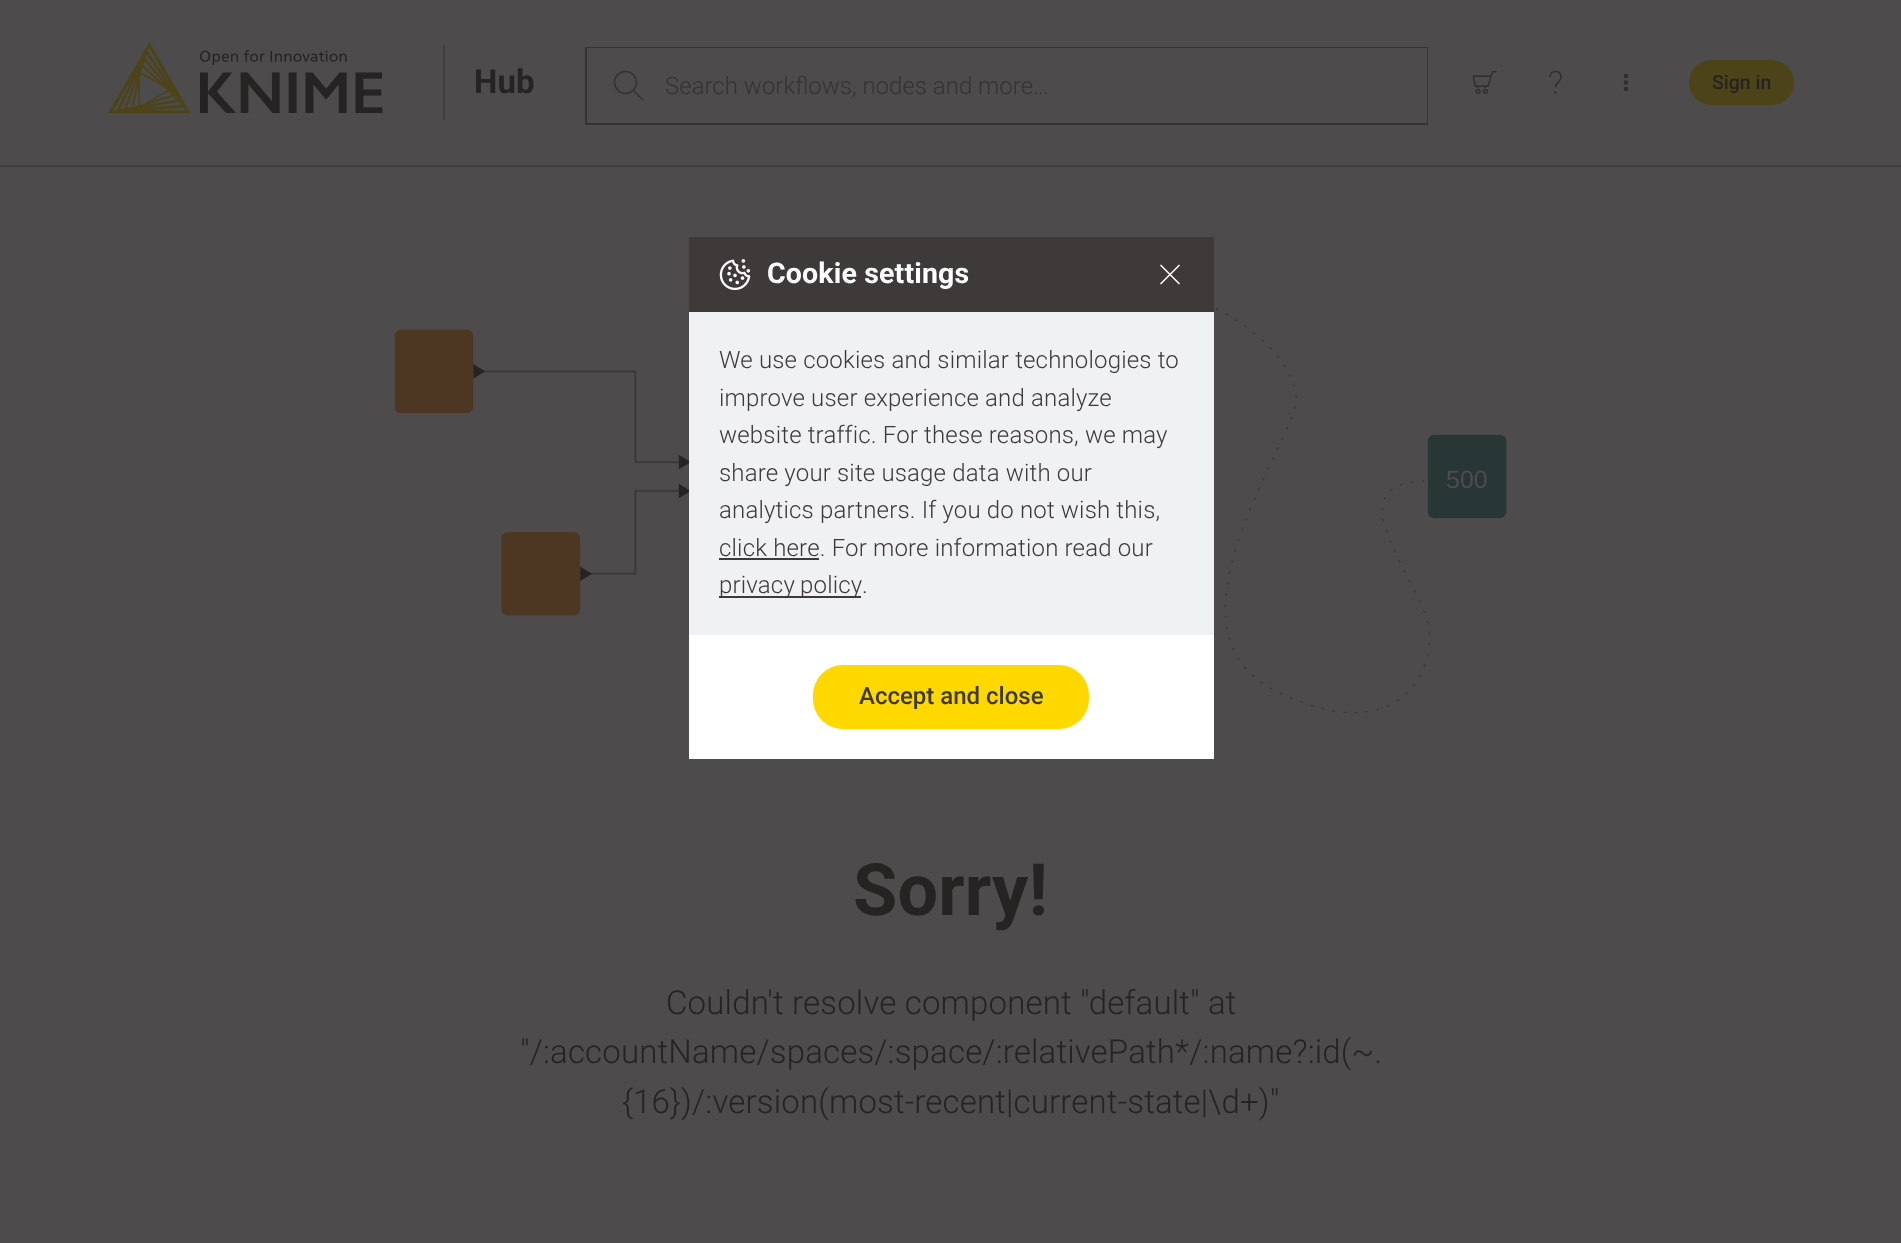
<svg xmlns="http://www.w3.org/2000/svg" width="1901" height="1243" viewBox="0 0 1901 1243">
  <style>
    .t1 { font: bold 33px Roboto; letter-spacing: 0.17px; fill: #262423; }
    .t2 { font: 300 24px Roboto; fill: #353333; }
    .t3 { font: 500 19.5px Roboto; fill: #262423; }
    .t4 { font: 25px Liberation Sans; fill: #4d4b4b; }
    .t5 { font: bold 72px Roboto; letter-spacing: 0.17px; fill: #262423; }
    .t6 { font: 300 33px Roboto; letter-spacing: 0.17px; fill: #262423; }
    .t7 { font: bold 28.5px Roboto; letter-spacing: 0.17px; fill: #fff; }
    .t8 { font: 300 24px Roboto; letter-spacing: 0.17px; fill: #3e3a39; }
    .t9 { font: 500 24px Roboto; fill: #3e3a39; }
  </style>
  <rect width="100%" height="100%" fill="#4d4b4b"/>
  <rect x="0" y="165" width="1901" height="2" fill="#403f40"/>
  <image x="108" y="42" width="275" height="71" href="images/1.png"/>
  <rect x="443" y="45" width="2" height="75" fill="#403f40"/>
  <text x="474" y="93" class="t1">Hub</text>
  <rect x="586" y="48" width="841" height="76" fill="none" stroke="#353333" stroke-width="2"/>
  <rect x="587" y="48" width="840" height="75" fill="#4d4b4b"/>
  <circle cx="625.5" cy="82.5" r="11" fill="none" stroke="#353333" stroke-width="1.5"/>
  <path d="M633 90L643 100" fill="none" stroke="#353333" stroke-width="1.5" stroke-linejoin="round"/>
  <text x="665" y="94" class="t2">Search workflows, nodes and more…</text>
  <image x="1472" y="71" width="25" height="23" href="images/2.png"/>
  <path d="M1555.5 87.5C1555 82.5 1562 81.5 1561 76C1559.5 69.5 1550 70.5 1550 77" fill="none" stroke="#302e2e" stroke-width="1.5" stroke-linejoin="round"/>
  <path d="M1555.5 92.5H1555.5" fill="none" stroke="#302e2e" stroke-width="2.4" stroke-linecap="round" stroke-linejoin="round"/>
  <path d="M1626 76H1626M1626 82.5H1626M1626 89H1626" fill="none" stroke="#302e2e" stroke-width="4.5" stroke-linecap="round"/>
  <rect x="1689" y="60" width="105" height="45" rx="22.5" fill="#4d4318"/>
  <text x="1712" y="89" class="t3">Sign in</text>
  <image x="395" y="308" width="1112" height="406" href="images/3.png"/>
  <text x="1446" y="488" class="t4">500</text>
  <text x="853" y="915" class="t5">Sorry!</text>
  <text x="666" y="1014" class="t6">Couldn't resolve component "default" at</text>
  <text x="520" y="1063" class="t6">"/:accountName/spaces/:space/:relativePath*/:name?:id(~.</text>
  <text x="622" y="1113" class="t6">{16})/:version(most-recent|current-state|\d+)"</text>
  <rect x="689" y="635" width="525" height="124" fill="#fff"/>
  <rect x="689" y="237" width="525" height="75" fill="#3e3a39"/>
  <image x="719" y="259" width="32" height="32" href="images/4.png"/>
  <text x="767" y="283" class="t7">Cookie settings</text>
  <path d="M1160.5 284L1179.5 265M1160.5 265L1179.5 284" fill="none" stroke="#fff" stroke-width="1.5" stroke-linejoin="round"/>
  <rect x="689" y="312" width="525" height="323" fill="#eff1f2"/>
  <text x="719" y="368" class="t8">We use cookies and similar technologies to</text>
  <text x="719" y="406" class="t8">improve user experience and analyze</text>
  <text x="719" y="443" class="t8">website traffic. For these reasons, we may</text>
  <text x="719" y="481" class="t8">share your site usage data with our</text>
  <text x="719" y="518" class="t8">analytics partners. If you do not wish this,</text>
  <text x="719" y="556" class="t8">click here. For more information read our</text>
  <rect x="719" y="558" width="100" height="2" fill="#3e3a39"/>
  <rect x="719" y="596" width="142" height="2" fill="#3e3a39"/>
  <text x="719" y="593" word-spacing="-1" class="t8">privacy policy</text>
  <text x="862" y="593" class="t8">.</text>
  <rect x="813" y="665" width="276" height="64" rx="30" fill="#ffd800"/>
  <text x="859" y="704" class="t9">Accept and close</text>
</svg>
